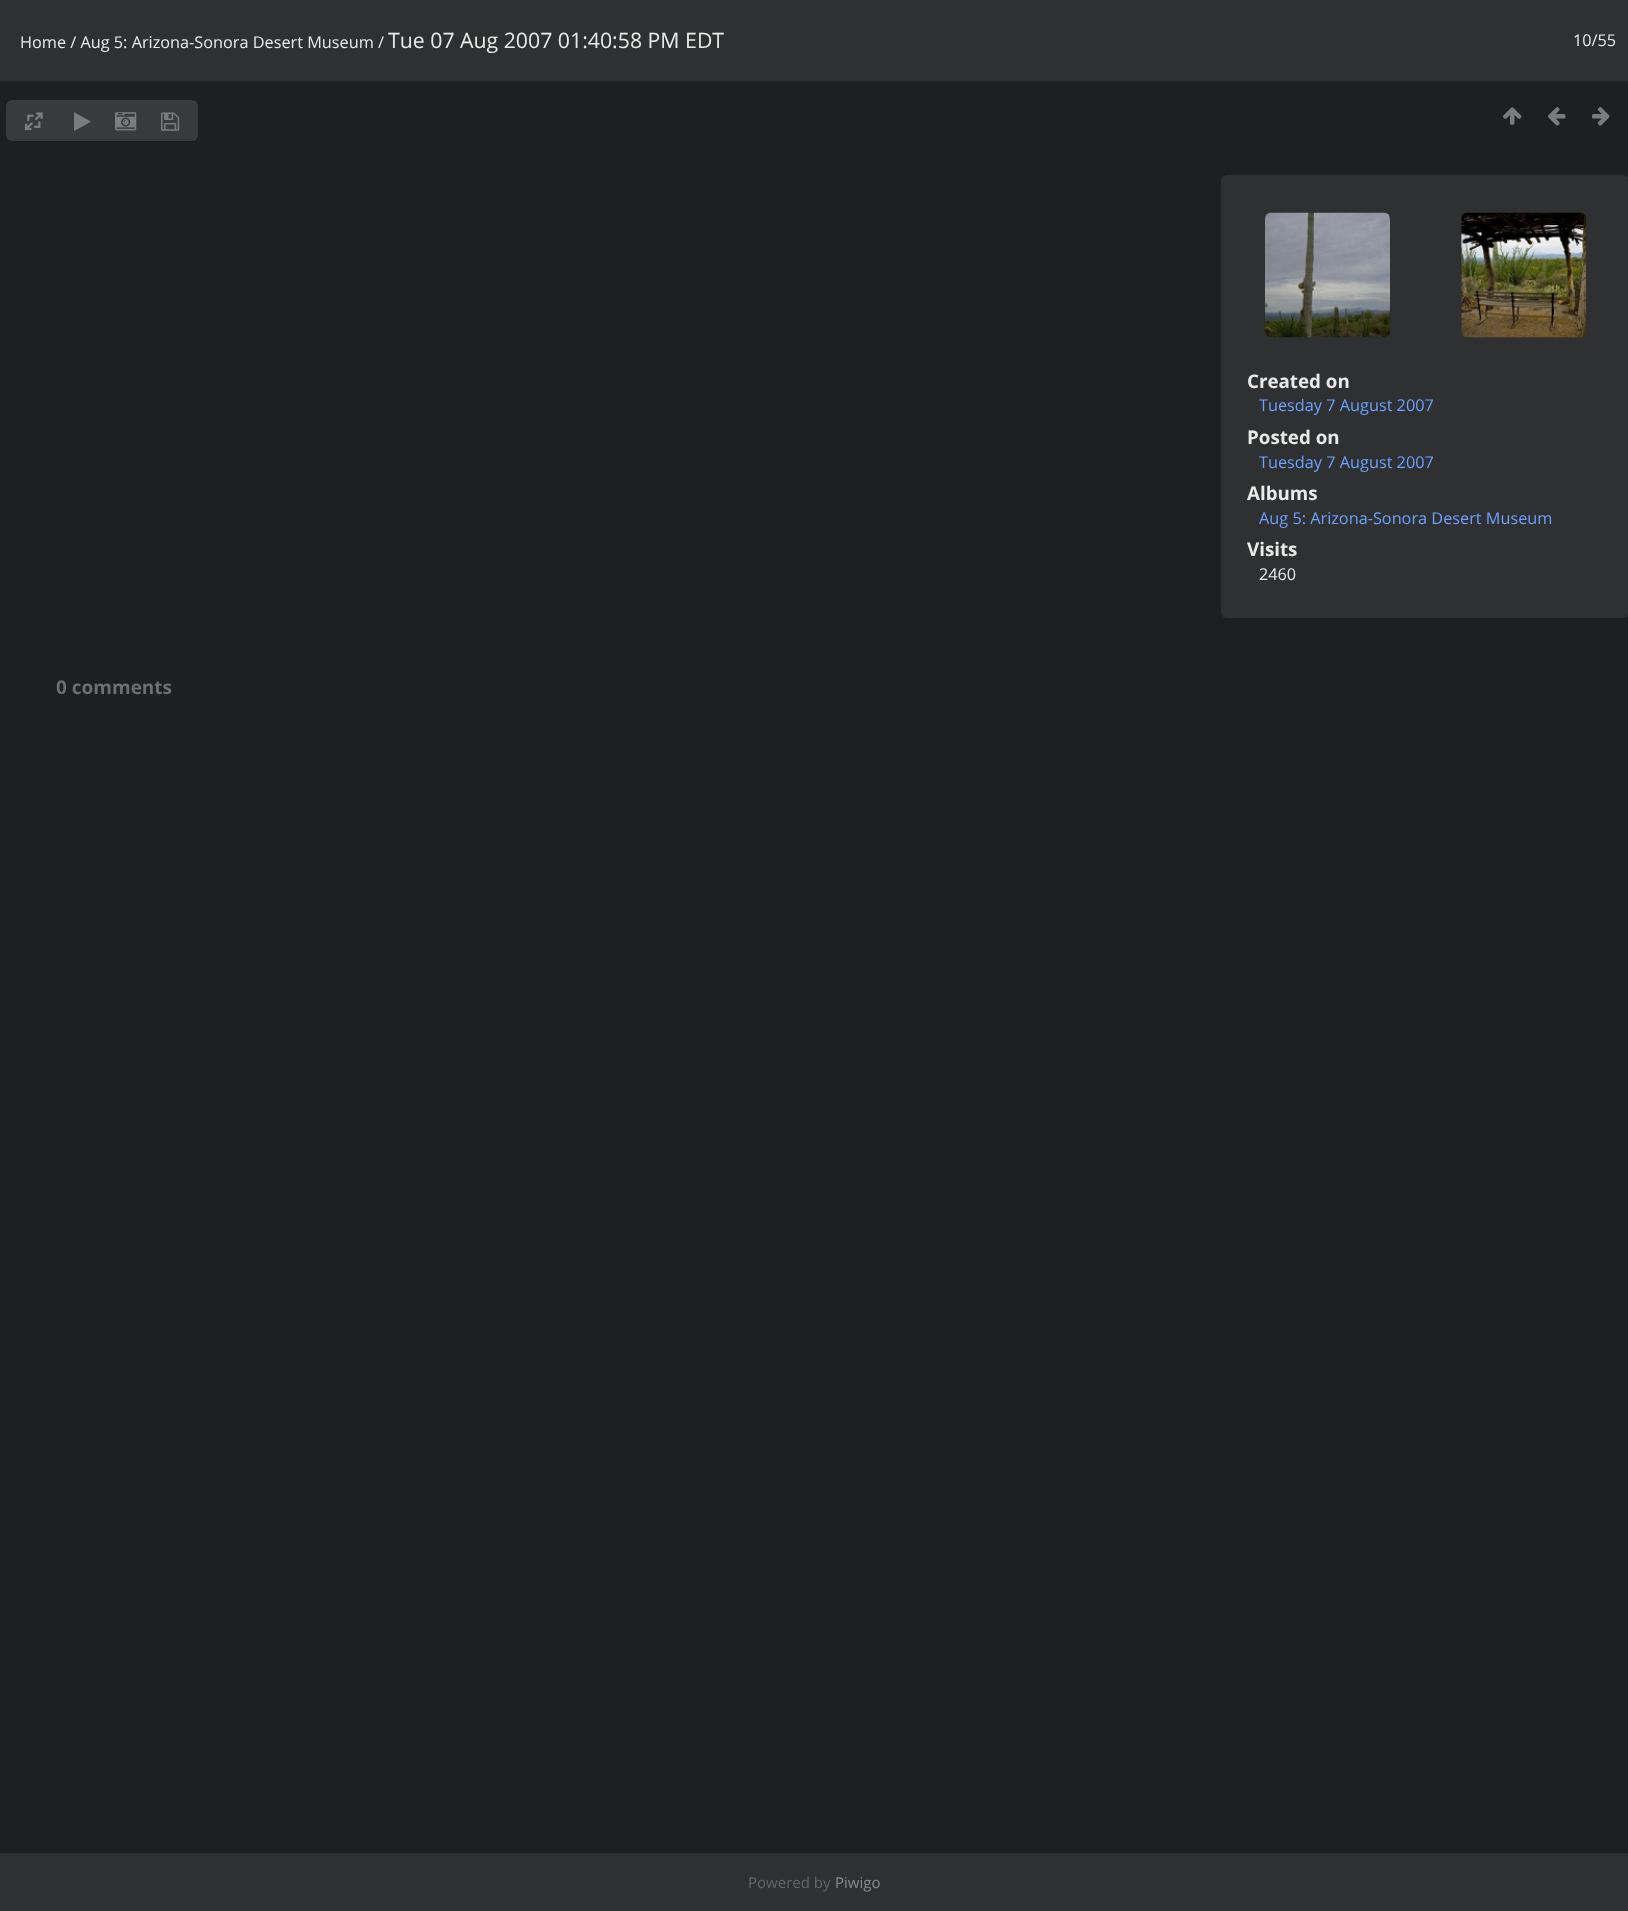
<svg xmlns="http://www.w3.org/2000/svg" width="1628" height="1911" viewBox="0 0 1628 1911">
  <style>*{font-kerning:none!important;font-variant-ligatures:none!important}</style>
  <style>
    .t1 { font: 16.25px Open Sans; fill: #eaeae9; }
    .t2 { font: 21.25px Open Sans; fill: #eaeae9; }
    .t3 { font: 21.25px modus; fill: #7a7b7e; }
    .t4 { font: bold 18.75px Open Sans; fill: #eaeae9; }
    .t5 { font: 16.25px Open Sans; fill: #6ba1ff; }
    .t6 { font: bold 19px Open Sans; fill: #6d6e71; }
    .t7 { font: 15px Open Sans; fill: #666; }
    .t8 { font: 15px Open Sans; fill: #8d8b8b; }
  </style>
  <rect width="100%" height="100%" fill="#1e1f23"/>
  <rect x="0" y="0" width="1628" height="81" fill="#2f3032"/>
  <text x="20" y="48" class="t1">Home / Aug 5: Arizona-Sonora Desert Museum /</text>
  <text x="388" y="48" class="t2">Tue 07 Aug 2007 01:40:58 PM EDT</text>
  <text x="1573" y="46" class="t1">10/55</text>
  <rect x="6" y="100" width="192" height="41" rx="6" fill="#393a3d"/>
  <image x="25" y="112" width="18" height="19" href="images/1.png"/>
  <text x="74" y="129" class="t3">▶</text>
  <image x="115" y="112" width="22" height="19" href="images/2.png"/>
  <text x="161" y="129" class="t3">💾</text>
  <text x="1503" y="123" class="t3">↑</text>
  <text x="1548" y="123" class="t3">←</text>
  <text x="1592" y="123" class="t3">→</text>
  <rect x="1221" y="175" width="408" height="443" rx="6" fill="#2f3032"/>
  <image x="1265" y="212" width="125" height="126" href="images/3.png"/>
  <image x="1461" y="212" width="126" height="126" href="images/4.png"/>
  <text x="1247" y="388" class="t4">Created on</text>
  <text x="1259" y="411" class="t5">Tuesday 7 August 2007</text>
  <text x="1247" y="444" class="t4">Posted on</text>
  <text x="1259" y="468" class="t5">Tuesday 7 August 2007</text>
  <text x="1247" y="500" class="t4">Albums</text>
  <text x="1259" y="524" class="t5">Aug 5: Arizona-Sonora Desert Museum</text>
  <text x="1247" y="556" class="t4">Visits</text>
  <text x="1259" y="580" class="t1">2460</text>
  <text x="56" y="694" class="t6">0 comments</text>
  <rect x="0" y="1853" width="1628" height="58" fill="#2f3032"/>
  <text x="748" y="1888" class="t7">Powered by</text>
  <text x="835" y="1888" class="t8">Piwigo</text>
</svg>
